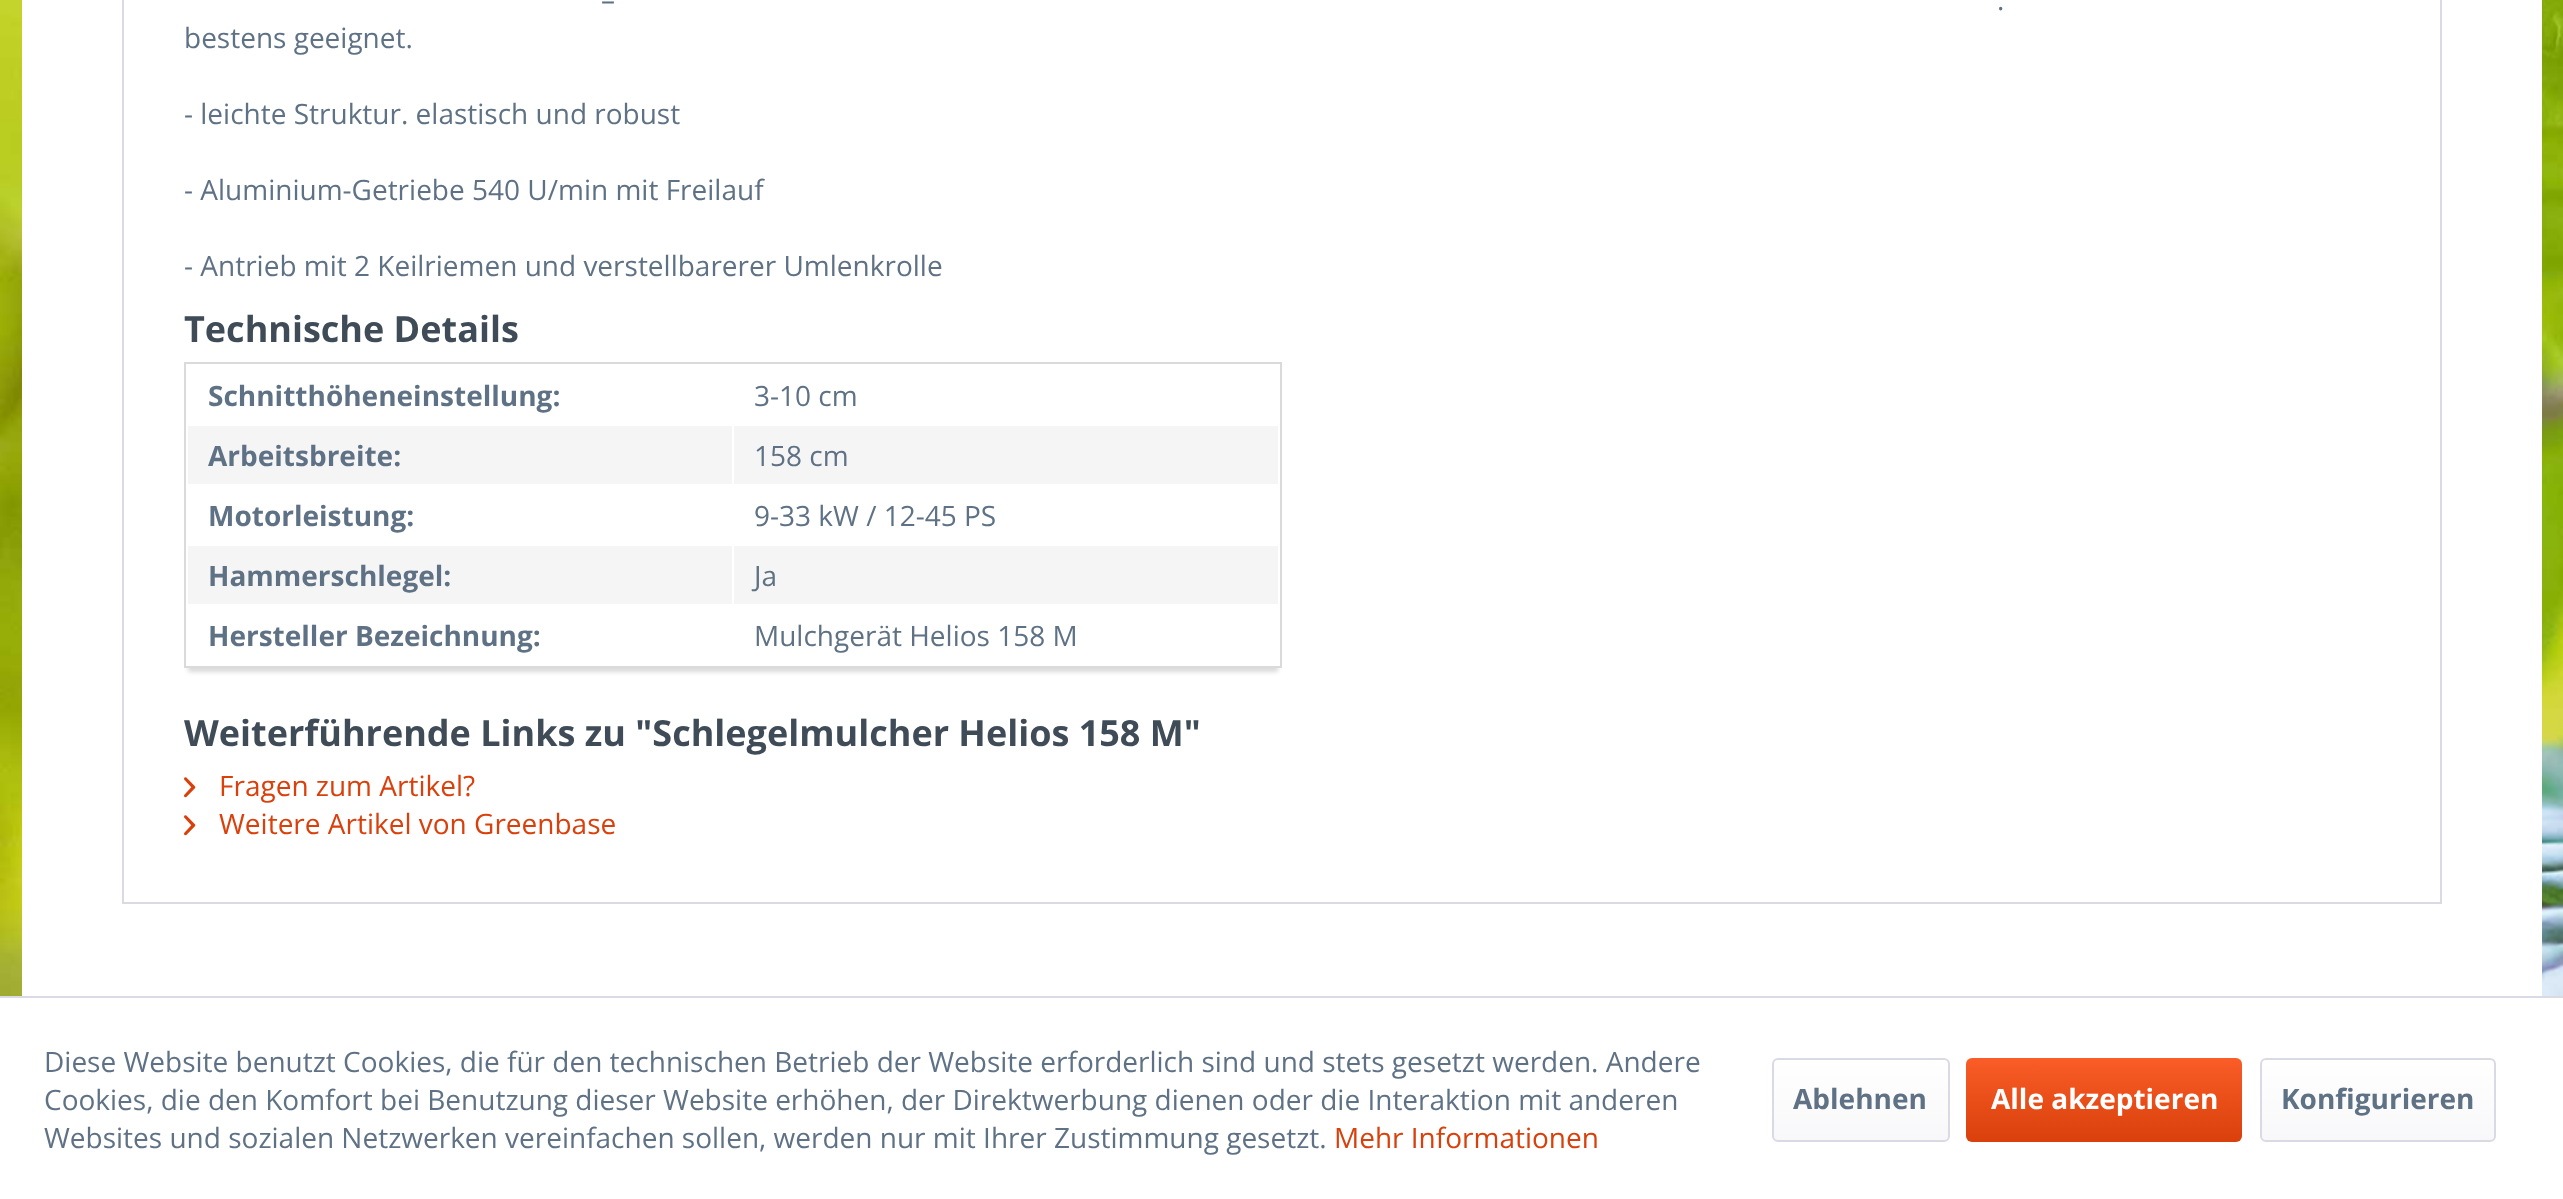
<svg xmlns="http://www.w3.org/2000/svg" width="2563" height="1199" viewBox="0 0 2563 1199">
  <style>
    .t1 { font: 28px Open Sans; fill: #5f7285; }
    .t2 { font: bold 36px Open Sans; fill: #3f4c58; }
    .t3 { font: bold 28px Open Sans; fill: #5f7285; }
    .t4 { font: 28px Open Sans; fill: #d9400b; }
    .t5 { font: bold 28px Open Sans; fill: #fff; }
  </style>
  <defs>
    <clipPath id="clip1"><rect x="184" y="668" width="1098" height="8"/></clipPath>
    <linearGradient id="g1" gradientUnits="userSpaceOnUse" x1="1861" y1="1060" x2="1861" y2="1140"><stop offset="0" stop-color="#fff"/><stop offset="1" stop-color="#f8f8fa"/></linearGradient>
    <linearGradient id="g2" gradientUnits="userSpaceOnUse" x1="2104" y1="1058" x2="2104" y2="1142"><stop offset="0" stop-color="#fa5d27"/><stop offset="1" stop-color="#d9400b"/></linearGradient>
    <linearGradient id="g3" gradientUnits="userSpaceOnUse" x1="2378" y1="1060" x2="2378" y2="1140"><stop offset="0" stop-color="#fff"/><stop offset="1" stop-color="#f8f8fa"/></linearGradient>
  </defs>
  <rect width="100%" height="100%" fill="#fff"/>
  <image x="0" y="0" width="2563" height="996" href="images/1.png"/>
  <rect x="22" y="0" width="2520" height="996" fill="#fff"/>
  <rect x="123" y="-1" width="2318" height="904" fill="none" stroke="#dadae5" stroke-width="2"/>
  <text x="601" y="10" class="t1">–</text>
  <text x="1997" y="10" class="t1">.</text>
  <text x="184" y="48" class="t1">bestens geeignet.</text>
  <text x="184" y="124" class="t1">- leichte Struktur. elastisch und robust</text>
  <text x="184" y="200" class="t1">- Aluminium-Getriebe 540 U/min mit Freilauf</text>
  <text x="184" y="276" class="t1">- Antrieb mit 2 Keilriemen und verstellbarerer Umlenkrolle</text>
  <text x="184" y="342" class="t2">Technische Details</text>
  <g clip-path="url(#clip1)">
    <rect x="188" y="374" width="1090" height="298" fill="#dbdada" filter="blur(2px)"/>
  </g>
  <rect x="185" y="363" width="1096" height="304" fill="none" stroke="#dbdada" stroke-width="2"/>
  <text x="208" y="406" class="t3">Schnitthöheneinstellung:</text>
  <text x="754" y="406" class="t1">3-10 cm</text>
  <rect x="188" y="426" width="544" height="58" fill="#f5f5f5"/>
  <text x="208" y="466" class="t3">Arbeitsbreite:</text>
  <rect x="734" y="426" width="544" height="58" fill="#f5f5f5"/>
  <text x="754" y="466" class="t1">158 cm</text>
  <text x="208" y="526" class="t3">Motorleistung:</text>
  <text x="754" y="526" class="t1">9-33 kW / 12-45 PS</text>
  <rect x="188" y="546" width="544" height="58" fill="#f5f5f5"/>
  <text x="208" y="586" class="t3">Hammerschlegel:</text>
  <rect x="734" y="546" width="544" height="58" fill="#f5f5f5"/>
  <text x="754" y="586" class="t1">Ja</text>
  <text x="208" y="646" class="t3">Hersteller Bezeichnung:</text>
  <text x="754" y="646" class="t1">Mulchgerät Helios 158 M</text>
  <text x="184" y="746" class="t2">Weiterführende Links zu "Schlegelmulcher Helios 158 M"</text>
  <image x="184" y="777" width="12" height="21" href="images/2.png"/>
  <text x="219" y="796" class="t4">Fragen zum Artikel?</text>
  <image x="184" y="815" width="12" height="21" href="images/2.png"/>
  <text x="219" y="834" class="t4">Weitere Artikel von Greenbase</text>
  <rect x="0" y="996" width="2563" height="2" fill="#dadae5"/>
  <text x="44" y="1072" class="t1">Diese Website benutzt Cookies, die für den technischen Betrieb der Website erforderlich sind und stets gesetzt werden. Andere</text>
  <text x="44" y="1110" class="t1">Cookies, die den Komfort bei Benutzung dieser Website erhöhen, der Direktwerbung dienen oder die Interaktion mit anderen</text>
  <text x="44" y="1148" class="t1">Websites und sozialen Netzwerken vereinfachen sollen, werden nur mit Ihrer Zustimmung gesetzt.</text>
  <text x="1334" y="1148" class="t4">Mehr Informationen</text>
  <rect x="1774" y="1060" width="174" height="80" rx="4" fill="url(#g1)"/>
  <rect x="1773" y="1059" width="176" height="82" rx="5" fill="none" stroke="#dadae5" stroke-width="2"/>
  <text x="1793" y="1109" class="t3">Ablehnen</text>
  <rect x="1966" y="1058" width="276" height="84" rx="6" fill="url(#g2)"/>
  <text x="1991" y="1109" class="t5">Alle akzeptieren</text>
  <rect x="2262" y="1060" width="232" height="80" rx="4" fill="url(#g3)"/>
  <rect x="2261" y="1059" width="234" height="82" rx="5" fill="none" stroke="#dadae5" stroke-width="2"/>
  <text x="2281" y="1109" class="t3">Konfigurieren</text>
</svg>
